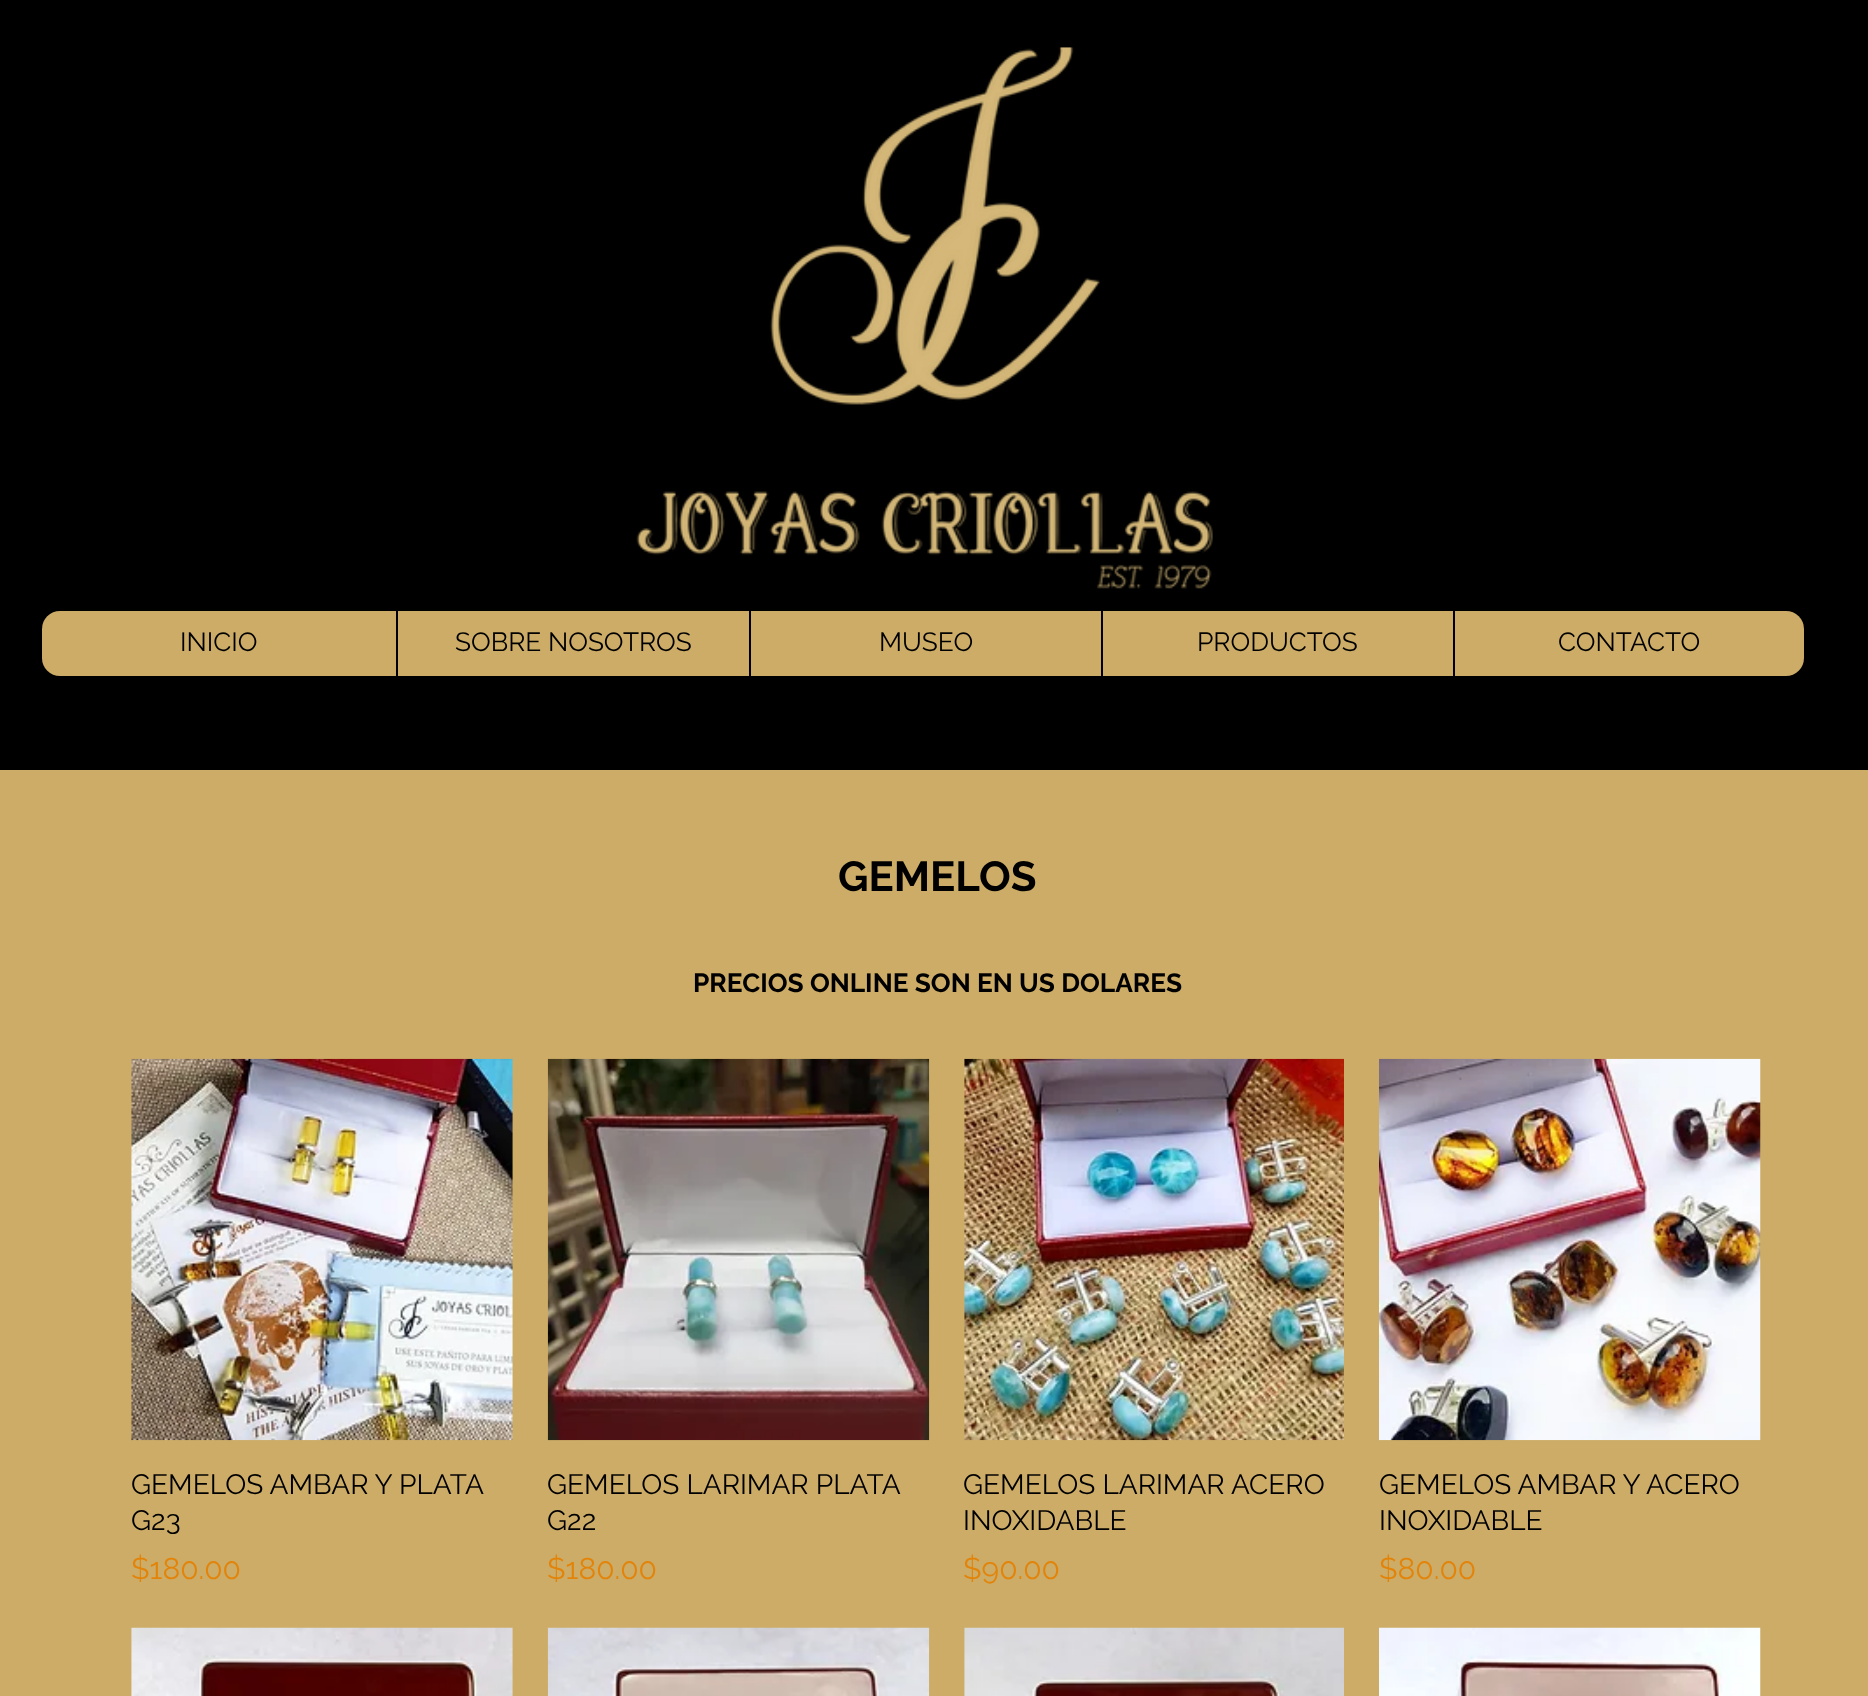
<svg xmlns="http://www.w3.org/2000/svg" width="1868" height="1696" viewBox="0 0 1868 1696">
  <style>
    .t1 { font: 26.25px Raleway; fill: #000; }
    .t2 { font: bold 42px Raleway; fill: #000; }
    .t3 { font: bold 26.25px Raleway; fill: #000; }
    .t4 { font: 28px Raleway; fill: #000; }
    .t5 { font: 30px Raleway; fill: #e3840a; }
  </style>
  <rect width="100%" height="100%" fill="#ccac67"/>
  <rect x="0" y="0" width="1868" height="770" fill="#000"/>
  <image x="636" y="47" width="577" height="542" href="images/1.png"/>
  <rect x="42" y="611" width="1762" height="65" rx="18" fill="#ccac67"/>
  <text x="180" y="651" class="t1">INICIO</text>
  <rect x="396" y="611" width="2" height="65" fill="#000"/>
  <text x="455" y="651" class="t1">SOBRE NOSOTROS</text>
  <rect x="749" y="611" width="2" height="65" fill="#000"/>
  <text x="879" y="651" class="t1">MUSEO</text>
  <rect x="1101" y="611" width="2" height="65" fill="#000"/>
  <text x="1197" y="651" class="t1">PRODUCTOS</text>
  <rect x="1453" y="611" width="2" height="65" fill="#000"/>
  <text x="1558" y="651" class="t1">CONTACTO</text>
  <text x="838" y="891" class="t2">GEMELOS</text>
  <text x="693" y="992" class="t3">PRECIOS ONLINE SON EN US DOLARES</text>
  <image x="131" y="1058" width="382" height="383" href="images/2.png"/>
  <text x="131" y="1494" class="t4">GEMELOS AMBAR Y PLATA</text>
  <text x="131" y="1530" class="t4">G23</text>
  <text x="131" y="1579" class="t5">$180.00</text>
  <image x="547" y="1058" width="383" height="383" href="images/3.png"/>
  <text x="547" y="1494" class="t4">GEMELOS LARIMAR PLATA</text>
  <text x="547" y="1530" class="t4">G22</text>
  <text x="547" y="1579" class="t5">$180.00</text>
  <image x="964" y="1058" width="380" height="383" href="images/4.png"/>
  <text x="963" y="1494" class="t4">GEMELOS LARIMAR ACERO</text>
  <text x="963" y="1530" class="t4">INOXIDABLE</text>
  <text x="963" y="1579" class="t5">$90.00</text>
  <image x="1379" y="1058" width="382" height="383" href="images/5.png"/>
  <text x="1379" y="1494" class="t4">GEMELOS AMBAR Y ACERO</text>
  <text x="1379" y="1530" class="t4">INOXIDABLE</text>
  <text x="1379" y="1579" class="t5">$80.00</text>
  <image x="131" y="1627" width="382" height="69" href="images/6.png"/>
  <image x="547" y="1627" width="383" height="69" href="images/7.png"/>
  <image x="964" y="1627" width="380" height="69" href="images/8.png"/>
  <image x="1379" y="1627" width="382" height="69" href="images/9.png"/>
</svg>
